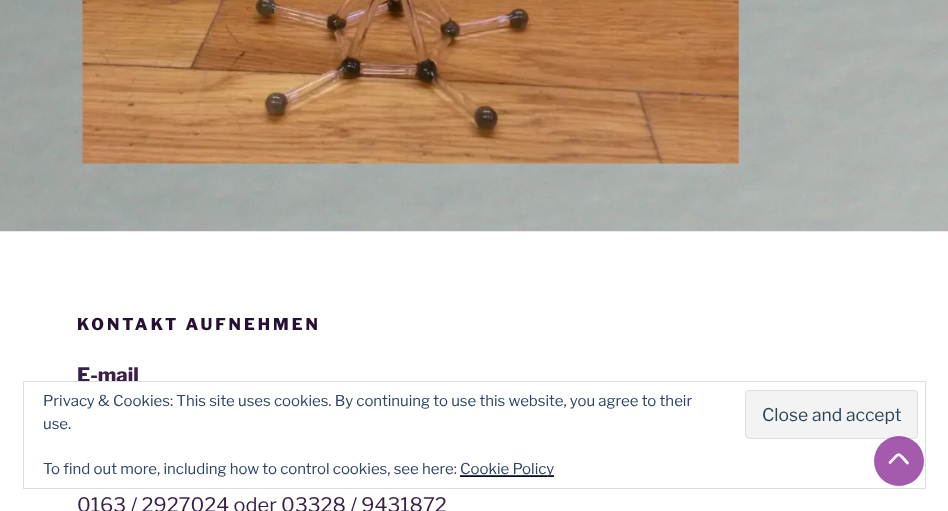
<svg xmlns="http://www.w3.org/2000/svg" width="948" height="511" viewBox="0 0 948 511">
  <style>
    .t1 { font: 800 16.25px Libre Franklin; letter-spacing: 3px; fill: #261132; }
    .t2 { font: 800 20px Libre Franklin; fill: #381f47; }
    .t3 { font: 20px Libre Franklin; fill: #381f47; }
    .t4 { font: 15px Libre Franklin; fill: #2e4467; }
    .t5 { font: 17.5px Libre Franklin; fill: #2e4453; }
  </style>
  <rect width="100%" height="100%" fill="#fff"/>
  <image x="0" y="0" width="948" height="231" href="images/1.png"/>
  <image x="82" y="0" width="657" height="164" href="images/2.png"/>
  <rect x="0" y="231" width="948" height="1" fill="#f0e4f6"/>
  <text x="77" y="330" class="t1">KONTAKT AUFNEHMEN</text>
  <text x="77" y="382" class="t2">E-mail</text>
  <text x="77" y="512" class="t3">0163 / 2927024 oder 03328 / 9431872</text>
  <rect x="118" y="382" width="3" height="1" fill="#fff"/>
  <rect x="23.5" y="381.5" width="902" height="107" fill="none" stroke="#dedede"/>
  <text x="43" y="406" class="t4">Privacy &amp; Cookies: This site uses cookies. By continuing to use this website, you agree to their</text>
  <rect x="745.5" y="390.5" width="172" height="48" rx="3.5" fill="#f3f3f3" stroke="#dedede"/>
  <text x="762" y="421" class="t5">Close and accept</text>
  <text x="43" y="429" class="t4">use.</text>
  <text x="43" y="474" class="t4">To find out more, including how to control cookies, see here:</text>
  <rect x="460" y="476" width="94" height="1" fill="#110817"/>
  <rect x="460" y="475" width="94" height="1" fill="#2e4467"/>
  <text x="460" y="474" class="t4">Cookie Policy</text>
  <circle cx="899" cy="461" r="25" fill="#7e168cb3"/>
  <path d="M907.5 463C897 452 900.5 452 890 462.5" fill="none" stroke="#fff" stroke-width="2.8" stroke-linecap="round" stroke-linejoin="bevel"/>
</svg>
